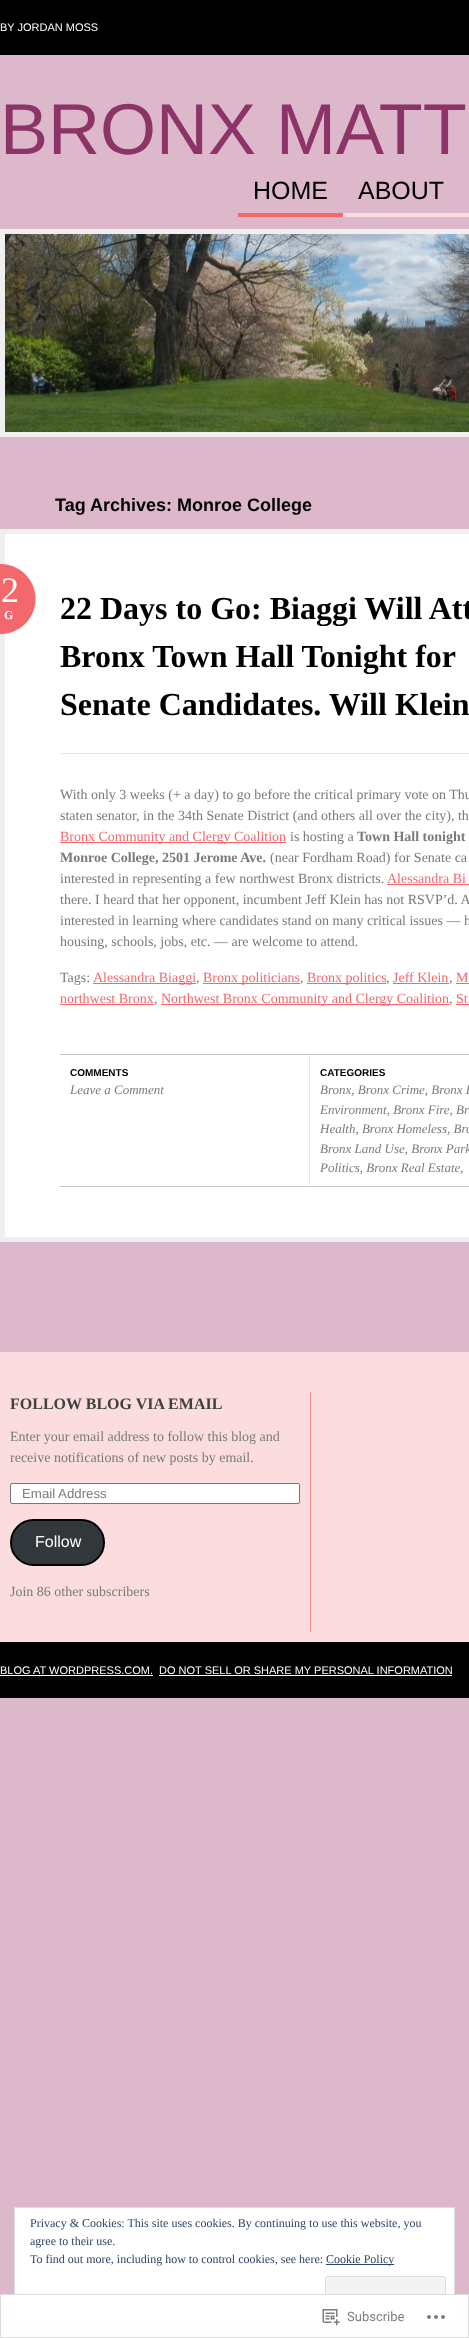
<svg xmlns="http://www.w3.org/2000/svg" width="469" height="2338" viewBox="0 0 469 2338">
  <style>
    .t1 { font: 11px Liberation Sans; fill: #fff; }
    .t2 { font: 72px Liberation Sans; fill: #8c3468; }
    .t3 { font: 25px Liberation Sans; fill: #000; }
    .t4 { font: bold 18px Liberation Sans; fill: #000; }
    .t5 { font: 36px Liberation Serif; fill: #fff; }
    .t6 { font: bold 12px Liberation Serif; fill: #fff; }
    .t7 { font: bold 32px Liberation Serif; fill: #000; }
    .t8 { font: 14px Liberation Serif; fill: #7a7a7a; }
    .t9 { font: 14px Liberation Serif; fill: #f3686d; }
    .t10 { font: bold 14px Liberation Serif; fill: #7a7a7a; }
    .t11 { font: bold 10px Liberation Sans; fill: #000; }
    .t12 { font: italic 13px Liberation Serif; fill: #7a7a7a; }
    .t13 { font: bold 16px Liberation Serif; fill: #404040; }
    .t14 { font: 13.25px Liberation Sans; fill: #7a7a7a; }
    .t15 { font: 16px Liberation Sans; fill: #fff; }
    .t16 { font: 12px Liberation Serif; fill: #2e4467; }
    .t17 { font: 13px Roboto; fill: #7b7f84; }
  </style>
  <rect width="100%" height="100%" fill="#dcb8ca"/>
  <rect x="0" y="0" width="469" height="55" fill="#000"/>
  <text x="0" y="31" class="t1">BY JORDAN MOSS</text>
  <text x="0" y="154" class="t2">BRONX MATT</text>
  <rect x="238" y="213" width="105" height="4" fill="#f3686d"/>
  <text x="253" y="199" class="t3">HOME</text>
  <rect x="343" y="213" width="126" height="4" fill="#fbdddf"/>
  <text x="358" y="199" class="t3">ABOUT</text>
  <rect x="2.5" y="231.5" width="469" height="203" fill="none" stroke="#efefef" stroke-width="5"/>
  <image x="5" y="234" width="464" height="198" href="images/1.png"/>
  <text x="55" y="511" class="t4">Tag Archives: Monroe College</text>
  <rect x="2.5" y="531.5" width="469" height="708" fill="#fff" stroke="#efefef" stroke-width="5"/>
  <image x="0" y="564" width="36" height="70" href="images/2.png"/>
  <text x="1" y="602" class="t5">2</text>
  <text x="4" y="619" class="t6">G</text>
  <rect x="60" y="753" width="409" height="1" fill="#e7e7e7"/>
  <text x="60" y="619" class="t7">22 Days to Go: Biaggi Will Att</text>
  <text x="60" y="667" class="t7">Bronx Town Hall Tonight for</text>
  <text x="60" y="715" class="t7">Senate Candidates. Will Klein</text>
  <text x="60" y="799" class="t8">With only 3 weeks (+ a day) to go before the critical primary vote on Thu</text>
  <text x="60" y="820" class="t8">staten senator, in the 34th Senate District (and others all over the city), th</text>
  <rect x="60" y="842" width="226" height="1" fill="#f3686d"/>
  <text x="60" y="841" class="t9">Bronx Community and Clergy Coalition</text>
  <text x="290" y="841" class="t8">is hosting a</text>
  <text x="357" y="841" class="t10">Town Hall tonight</text>
  <text x="60" y="862" class="t10">Monroe College, 2501 Jerome Ave.</text>
  <text x="270" y="862" class="t8">(near Fordham Road) for Senate ca</text>
  <text x="60" y="883" class="t8">interested in representing a few northwest Bronx districts.</text>
  <text x="387" y="883" class="t9">Alessandra Bi</text>
  <rect x="387" y="884" width="82" height="1" fill="#f3686d"/>
  <text x="60" y="904" class="t8">there. I heard that her opponent, incumbent Jeff Klein has not RSVP’d. A</text>
  <text x="60" y="925" class="t8">interested in learning where candidates stand on many critical issues — h</text>
  <text x="60" y="946" class="t8">housing, schools, jobs, etc. — are welcome to attend.</text>
  <text x="60" y="982" class="t8">Tags:</text>
  <rect x="93" y="983" width="103" height="1" fill="#f3686d"/>
  <text x="93" y="982" class="t9">Alessandra Biaggi</text>
  <rect x="203" y="983" width="97" height="1" fill="#f3686d"/>
  <text x="203" y="982" class="t9">Bronx politicians</text>
  <rect x="307" y="983" width="79" height="1" fill="#f3686d"/>
  <text x="307" y="982" class="t9">Bronx politics</text>
  <text x="393" y="982" class="t9">Jeff Klein</text>
  <rect x="393" y="983" width="56" height="1" fill="#f3686d"/>
  <text x="456" y="982" class="t9">M</text>
  <rect x="456" y="983" width="13" height="1" fill="#f3686d"/>
  <text x="196" y="982" class="t8">,</text>
  <text x="300" y="982" class="t8">,</text>
  <text x="386" y="982" class="t8">,</text>
  <text x="449" y="982" class="t8">,</text>
  <text x="60" y="1003" class="t9">northwest Bronx</text>
  <rect x="60" y="1004" width="94" height="1" fill="#f3686d"/>
  <text x="154" y="1003" class="t8">,</text>
  <rect x="161" y="1004" width="288" height="1" fill="#f3686d"/>
  <text x="161" y="1003" class="t9">Northwest Bronx Community and Clergy Coalition</text>
  <text x="449" y="1003" class="t8">,</text>
  <text x="456" y="1003" class="t9">St</text>
  <rect x="456" y="1004" width="13" height="1" fill="#f3686d"/>
  <rect x="60" y="1054" width="409" height="1" fill="#c4c4c4"/>
  <rect x="60" y="1186" width="409" height="1" fill="#c4c4c4"/>
  <text x="70" y="1076" class="t11">COMMENTS</text>
  <text x="70" y="1094" class="t12">Leave a Comment</text>
  <rect x="309" y="1055" width="1" height="130" fill="#e7e7e7"/>
  <text x="320" y="1076" class="t11">CATEGORIES</text>
  <text x="320" y="1094" class="t12">Bronx, Bronx Crime, Bronx E</text>
  <text x="320" y="1114" class="t12">Environment, Bronx Fire, Br</text>
  <text x="320" y="1133" class="t12">Health, Bronx Homeless, Bro</text>
  <text x="320" y="1153" class="t12">Bronx Land Use, Bronx Park</text>
  <text x="320" y="1172" class="t12">Politics, Bronx Real Estate,</text>
  <rect x="0" y="1352" width="469" height="290" fill="#fbdddf"/>
  <rect x="310" y="1392" width="1" height="240" fill="#f49096"/>
  <text x="10" y="1409" class="t13">FOLLOW BLOG VIA EMAIL</text>
  <text x="10" y="1441" class="t8">Enter your email address to follow this blog and</text>
  <text x="10" y="1462" class="t8">receive notifications of new posts by email.</text>
  <rect x="10.5" y="1483.5" width="289" height="20" rx="1.5" fill="#fff" stroke="#767676"/>
  <text x="22" y="1498" class="t14">Email Address</text>
  <rect x="11" y="1520" width="93" height="45" rx="22.5" fill="#32373c" stroke="#000" stroke-width="2"/>
  <text x="35" y="1547" class="t15">Follow</text>
  <text x="10" y="1596" class="t8">Join 86 other subscribers</text>
  <rect x="0" y="1642" width="469" height="56" fill="#000"/>
  <text x="0" y="1674" class="t1">BLOG AT WORDPRESS.COM.</text>
  <rect x="0" y="1675" width="153" height="1" fill="#fff"/>
  <text x="159" y="1674" class="t1">DO NOT SELL OR SHARE MY PERSONAL INFORMATION</text>
  <rect x="159" y="1675" width="293" height="1" fill="#fff"/>
  <rect x="14.5" y="2207.5" width="440" height="116" fill="#fff" stroke="#dedede"/>
  <text x="30" y="2227" class="t16">Privacy &amp; Cookies: This site uses cookies. By continuing to use this website, you</text>
  <text x="30" y="2245" class="t16">agree to their use.</text>
  <text x="30" y="2263" class="t16">To find out more, including how to control cookies, see here:</text>
  <rect x="326" y="2264" width="68" height="1" fill="#2e4467"/>
  <text x="326" y="2263" class="t16">Cookie Policy</text>
  <rect x="325.5" y="2276.5" width="120" height="38" rx="2.5" fill="#f3f3f3" stroke="#dedede"/>
  <rect x="0" y="2294" width="469" height="44" fill="#fffffffa"/>
  <rect x="0.5" y="2294.5" width="468" height="43" fill="none" stroke="#dcdcdefa"/>
  <image x="322" y="2309" width="18" height="17" href="images/3.png"/>
  <text x="347" y="2321" class="t17">Subscribe</text>
  <image x="427" y="2315" width="18" height="4" href="images/4.png"/>
</svg>
